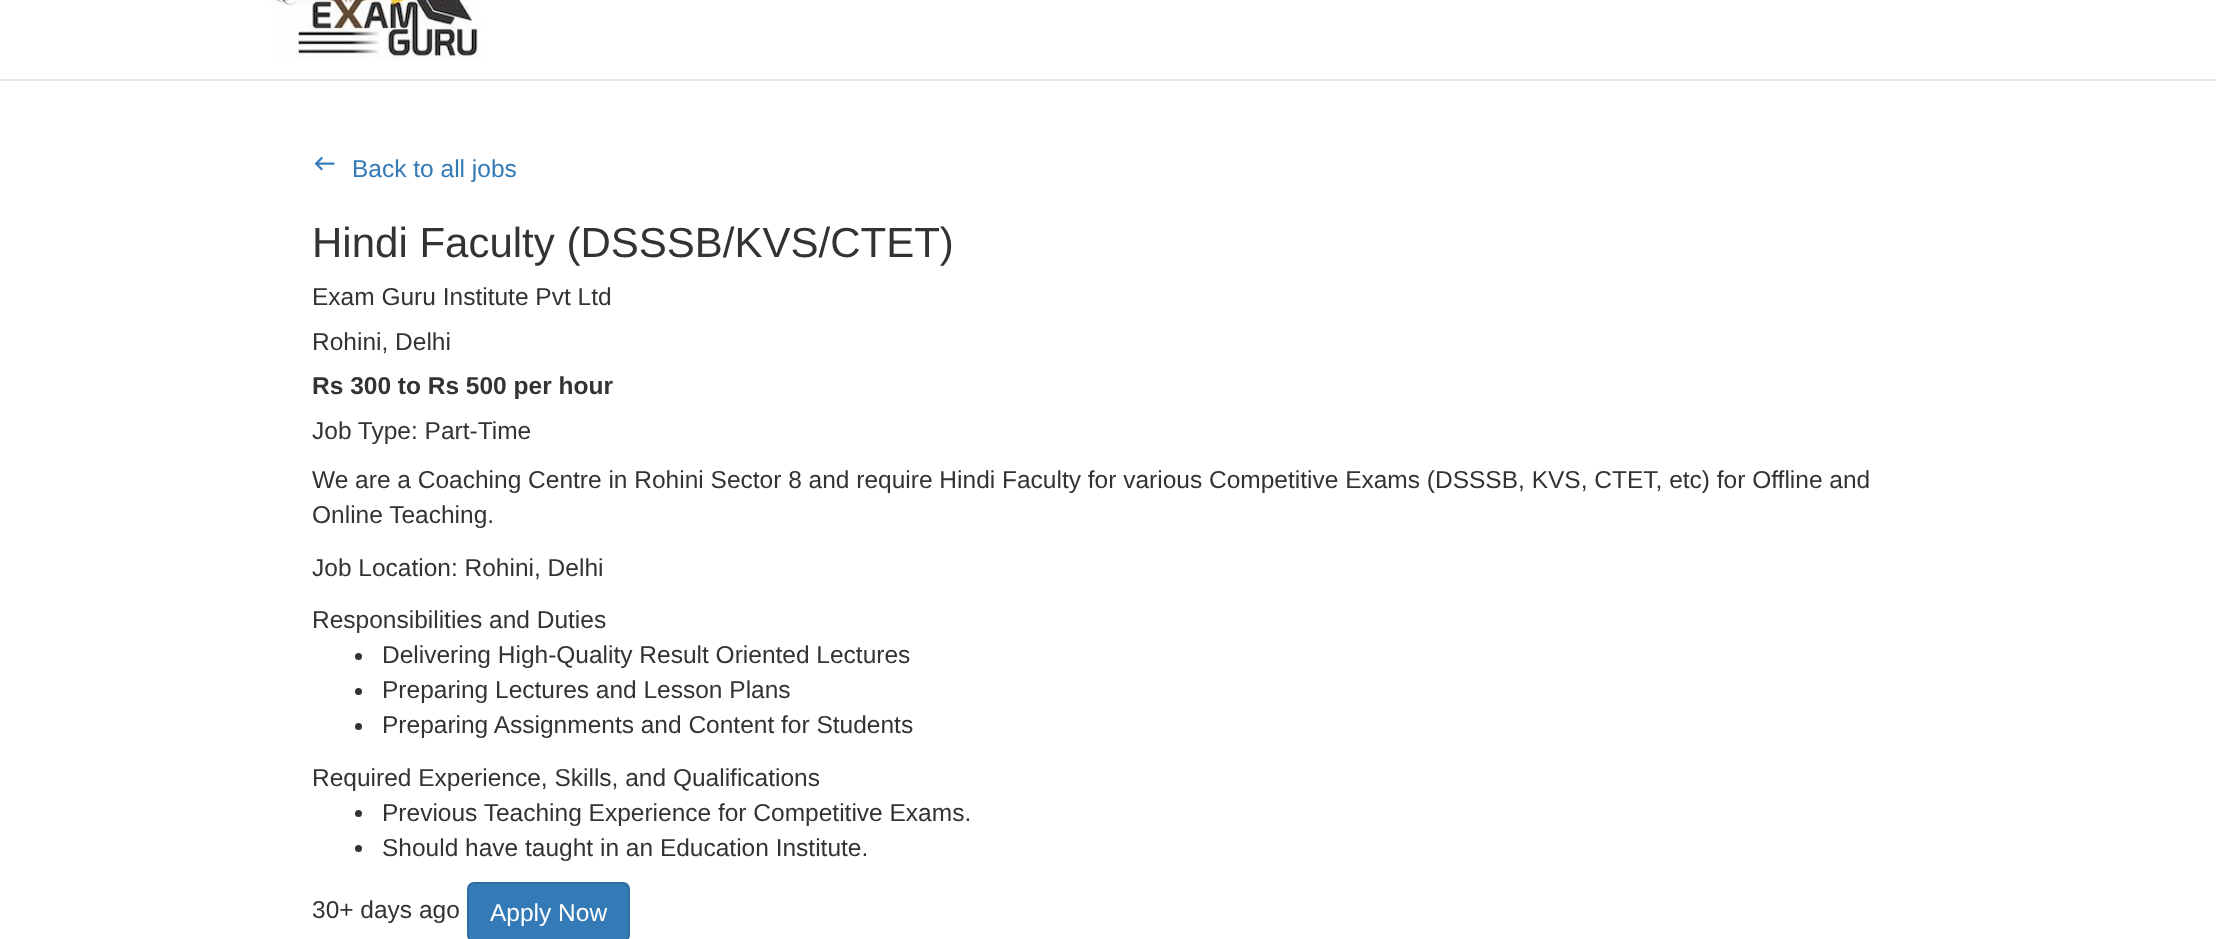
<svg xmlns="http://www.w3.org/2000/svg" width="2216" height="939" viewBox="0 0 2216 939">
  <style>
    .t1 { font: 24.5px Liberation Sans; fill: #337ab7; }
    .t2 { font: 42px Liberation Sans; fill: #333; }
    .t3 { font: 24.5px Liberation Sans; fill: #333; }
    .t4 { font: bold 24.5px Liberation Sans; fill: #333; }
    .t5 { font: 24.5px Liberation Sans; fill: #fff; }
  </style>
  <rect width="100%" height="100%" fill="#fff"/>
  <rect x="0" y="79" width="2216" height="2" fill="#e7e7e7"/>
  <image x="271" y="0" width="210" height="60" href="images/1.png"/>
  <image x="314" y="156" width="21" height="15" href="images/2.png"/>
  <text x="352" y="177" class="t1">Back to all jobs</text>
  <text x="312" y="257" class="t2">Hindi Faculty (DSSSB/KVS/CTET)</text>
  <text x="312" y="305" class="t3">Exam Guru Institute Pvt Ltd</text>
  <text x="312" y="350" class="t3">Rohini, Delhi</text>
  <text x="312" y="394" class="t4">Rs 300 to Rs 500 per hour</text>
  <text x="312" y="439" class="t3">Job Type: Part-Time</text>
  <text x="312" y="488" class="t3">We are a Coaching Centre in Rohini Sector 8 and require Hindi Faculty for various Competitive Exams (DSSSB, KVS, CTET, etc) for Offline and</text>
  <text x="312" y="523" class="t3">Online Teaching.</text>
  <text x="312" y="576" class="t3">Job Location: Rohini, Delhi</text>
  <text x="312" y="628" class="t3">Responsibilities and Duties</text>
  <circle cx="358.5" cy="656.5" r="3.5" fill="#333"/>
  <text x="382" y="663" class="t3">Delivering High-Quality Result Oriented Lectures</text>
  <circle cx="358.5" cy="691.5" r="3.5" fill="#333"/>
  <text x="382" y="698" class="t3">Preparing Lectures and Lesson Plans</text>
  <circle cx="358.5" cy="726.5" r="3.5" fill="#333"/>
  <text x="382" y="733" class="t3">Preparing Assignments and Content for Students</text>
  <text x="312" y="786" class="t3">Required Experience, Skills, and Qualifications</text>
  <circle cx="358.5" cy="813.5" r="3.5" fill="#333"/>
  <text x="382" y="821" class="t3">Previous Teaching Experience for Competitive Exams.</text>
  <circle cx="358.5" cy="848.5" r="3.5" fill="#333"/>
  <text x="382" y="856" class="t3">Should have taught in an Education Institute.</text>
  <text x="312" y="918" class="t3">30+ days ago</text>
  <rect x="468" y="883" width="161" height="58" rx="6" fill="#337ab7" stroke="#2e6da4" stroke-width="2"/>
  <text x="490" y="921" class="t5">Apply Now</text>
</svg>
